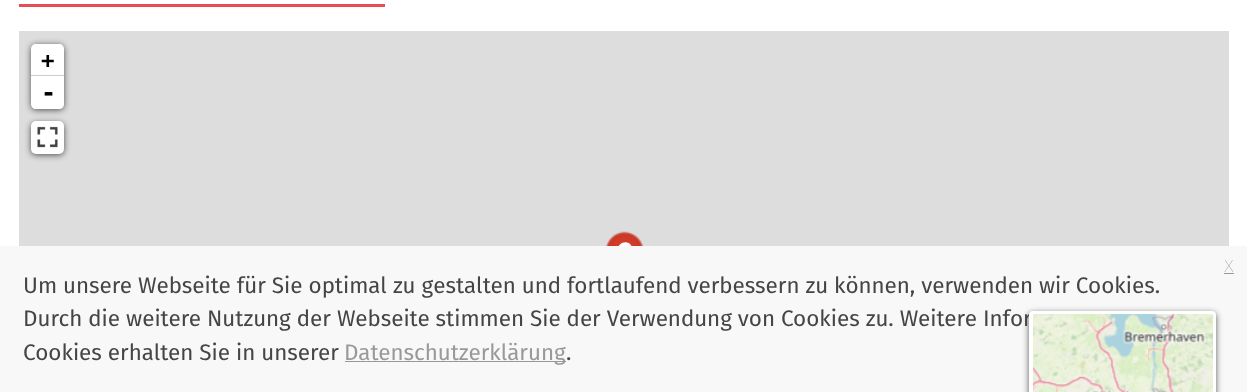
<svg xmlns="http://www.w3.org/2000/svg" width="1247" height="392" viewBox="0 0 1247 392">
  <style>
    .t1 { font: bold 22.5px DejaVu Sans Mono; fill: #000; }
    .t2 { font: bold 25px DejaVu Sans Mono; fill: #000; }
    .t3 { font: 22.5px Fira Sans; fill: #454545; }
    .t4 { font: 100 22.5px Fira Sans; fill: #999; }
    .t5 { font: 22.5px Fira Sans; fill: #999; }
  </style>
  <rect width="100%" height="100%" fill="#fff"/>
  <rect x="19" y="4" width="366" height="3" fill="#e84c55"/>
  <rect x="19" y="31" width="1210" height="215" fill="#ddd"/>
  <rect x="31" y="45" width="33" height="65" rx="5" fill="#000000a6" filter="blur(3px)"/>
  <path d="M36 44H59C62 44 64 46 64 49V76H31V49C31 46 33 44 36 44Z" fill="#fff"/>
  <rect x="31" y="75" width="33" height="1" fill="#ccc"/>
  <text x="41" y="68" class="t1">+</text>
  <path d="M31 76H64V104C64 107 62 109 59 109H36C33 109 31 107 31 104Z" fill="#fff"/>
  <text x="41" y="101" class="t2">-</text>
  <rect x="31" y="123" width="33" height="32" rx="5" fill="#000000a6" filter="blur(3px)"/>
  <rect x="31" y="121" width="33" height="33" rx="5" fill="#fff"/>
  <image x="37" y="126" width="21" height="22" href="images/1.png"/>
  <image x="605" y="231" width="39" height="15" href="images/4.png"/>
  <path d="M631.5 246C636.5 254.5 623.5 262.5 618.5 254C613.5 245.5 626.5 237.5 631.5 246Z" fill="#fff"/>
  <rect x="0" y="246" width="1247" height="146" fill="#f8f8f9"/>
  <rect x="1029" y="313" width="187" height="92" rx="4" fill="#000000a6" filter="blur(3px)"/>
  <text x="23" y="326" class="t3">Durch die weitere Nutzung der Webseite stimmen Sie der Verwendung von Cookies zu. Weitere Infor</text>
  <rect x="1031" y="313" width="183" height="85" rx="2" fill="none" stroke="#fff" stroke-width="4"/>
  <image x="1033" y="314" width="115" height="78" href="images/2.png"/>
  <image x="1148" y="314" width="65" height="78" href="images/3.png"/>
  <text x="1224" y="272" class="t4">x</text>
  <rect x="1224" y="273" width="10" height="1" fill="#999"/>
  <text x="23" y="293" class="t3">Um unsere Webseite für Sie optimal zu gestalten und fortlaufend verbessern zu können, verwenden wir Cookies.</text>
  <text x="23" y="360" class="t3">Cookies erhalten Sie in unserer</text>
  <rect x="345" y="361" width="221" height="1" fill="#999"/>
  <text x="344" y="360" class="t5">Datenschutzerklärung</text>
  <text x="566" y="360" class="t3">.</text>
</svg>
